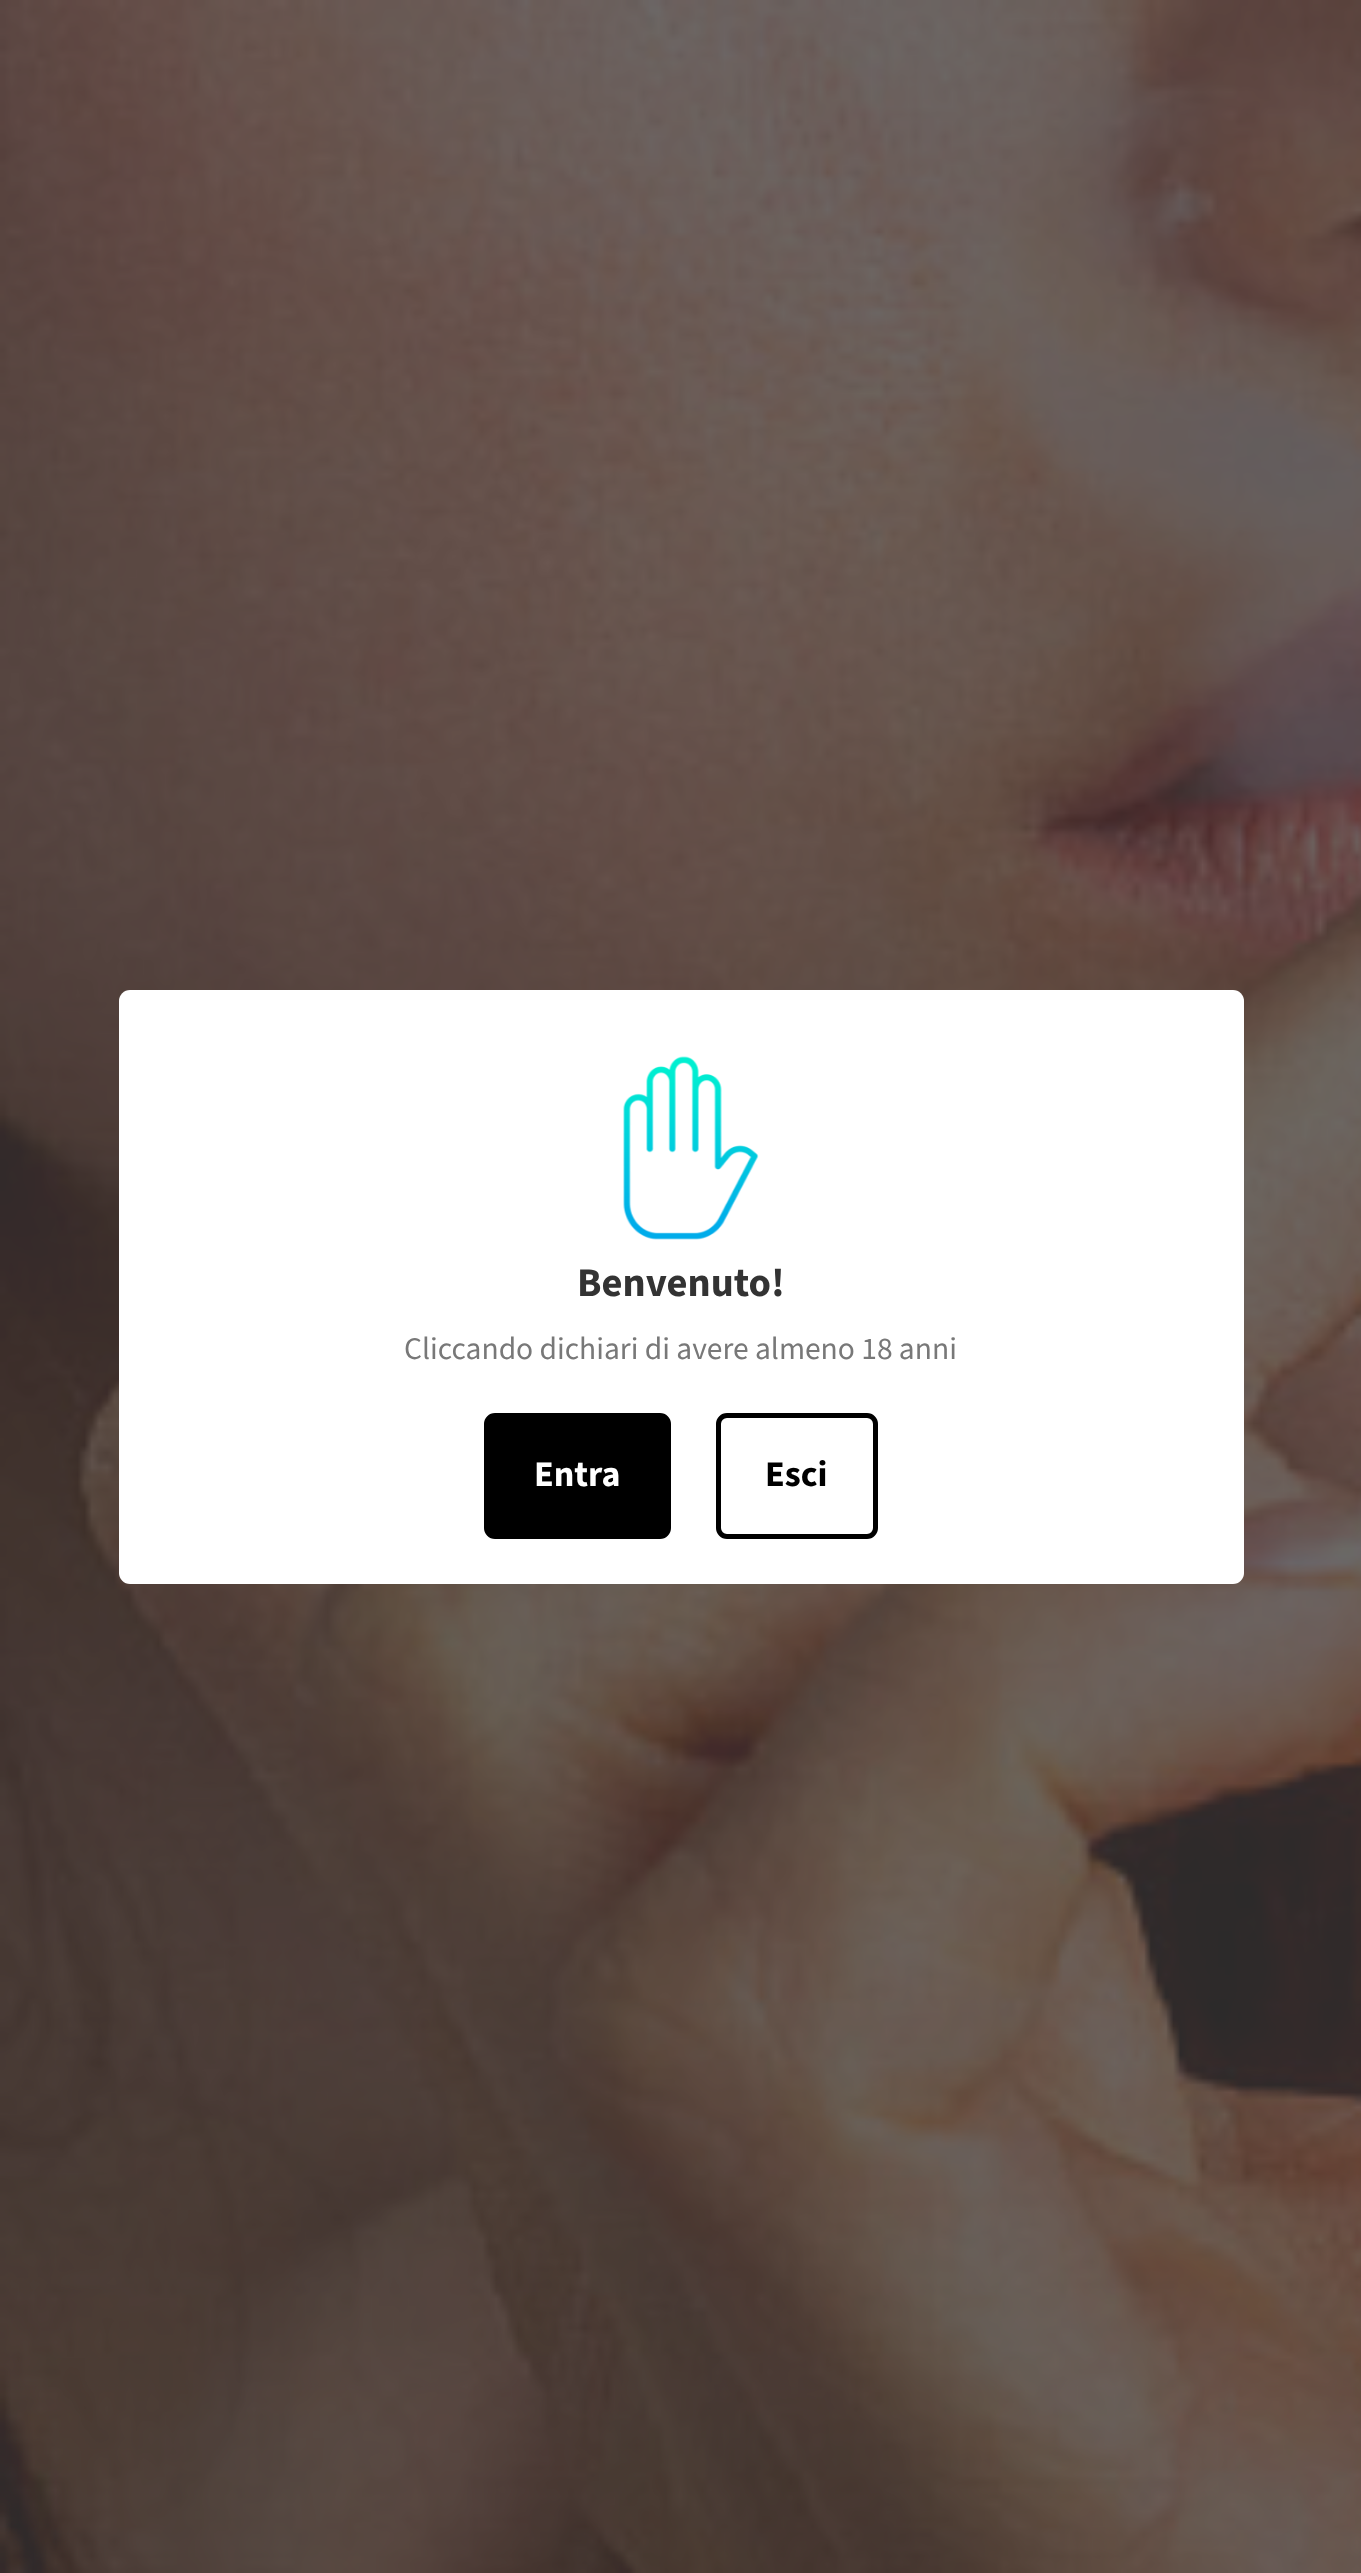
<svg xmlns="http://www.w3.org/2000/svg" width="1361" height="2573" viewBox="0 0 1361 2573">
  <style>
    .t1 { font: bold 40.5px Source Sans Pro; fill: #333; }
    .t2 { font: 31.5px Source Sans Pro; fill: #787878; }
    .t3 { font: bold 36px Source Sans Pro; fill: #fff; }
    .t4 { font: bold 36px Source Sans Pro; fill: #000; }
  </style>
  <rect width="100%" height="100%" fill="#fff"/>
  <image x="0" y="0" width="1361" height="2573" href="images/1.png"/>
  <rect x="119" y="990" width="1125" height="594" rx="11" fill="#fff"/>
  <image x="623" y="1056" width="136" height="184" href="images/2.png"/>
  <text x="577" y="1296" class="t1">Benvenuto!</text>
  <text x="404" y="1359" class="t2">Cliccando dichiari di avere almeno 18 anni</text>
  <rect x="486.5" y="1415.5" width="182" height="121" rx="8.5" fill="#000" stroke="#000" stroke-width="5"/>
  <text x="534" y="1486" class="t3">Entra</text>
  <rect x="718.5" y="1415.5" width="157" height="121" rx="8.5" fill="none" stroke="#000" stroke-width="5"/>
  <text x="765" y="1486" class="t4">Esci</text>
</svg>
